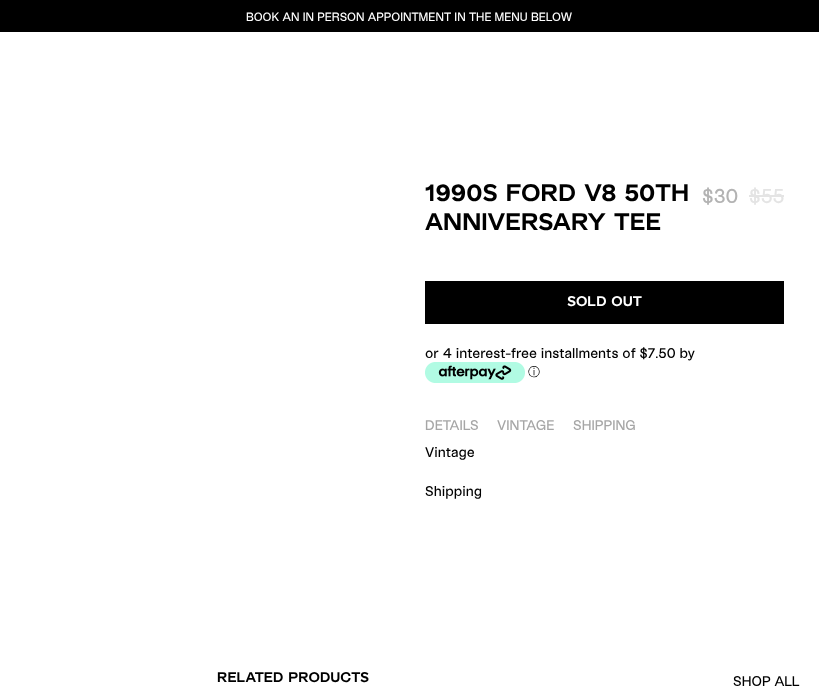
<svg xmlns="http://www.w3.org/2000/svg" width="819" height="698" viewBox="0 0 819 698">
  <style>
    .t1 { font: 500 12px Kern; fill: #fff; }
    .t2 { font: bold 24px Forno; fill: #000; }
    .t3 { font: 500 20px Kern; fill: #b3b3b3; }
    .t4 { font: 500 20px Kern; fill: #e4e4e4; }
    .t5 { font: bold 14px Forno; fill: #fff; }
    .t6 { font: 500 14px Kern; fill: #000; }
    .t7 { font: 500 12px WenQuanYi Zen Hei; fill: #000; }
    .t8 { font: 500 14px Kern; fill: #a6a6a6; }
    .t9 { font: bold 14px Forno; fill: #000; }
  </style>
  <rect width="100%" height="100%" fill="#fff"/>
  <rect x="0" y="0" width="819" height="32" fill="#000"/>
  <text x="246" y="21" class="t1">BOOK AN IN PERSON APPOINTMENT IN THE MENU BELOW</text>
  <text x="425" y="201" class="t2">1990S FORD V8 50TH</text>
  <text x="425" y="230" class="t2">ANNIVERSARY TEE</text>
  <text x="702" y="203" class="t3">$30</text>
  <text x="749" y="203" class="t4">$55</text>
  <rect x="749" y="195" width="35" height="2" fill="#e4e4e4"/>
  <rect x="425" y="281" width="359" height="43" fill="#000"/>
  <text x="567" y="306" class="t5">SOLD OUT</text>
  <text x="425" y="358" class="t6">or 4 interest-free installments of $7.50 by</text>
  <image x="425" y="362" width="100" height="21" href="images/1.png"/>
  <text x="528" y="376" class="t7">ⓘ</text>
  <text x="425" y="430" class="t8">DETAILS</text>
  <text x="497" y="430" class="t8">VINTAGE</text>
  <text x="573" y="430" class="t8">SHIPPING</text>
  <text x="425" y="457" class="t6">Vintage</text>
  <text x="425" y="496" class="t6">Shipping</text>
  <text x="217" y="682" class="t9">RELATED PRODUCTS</text>
  <text x="733" y="686" class="t6">SHOP ALL</text>
</svg>
